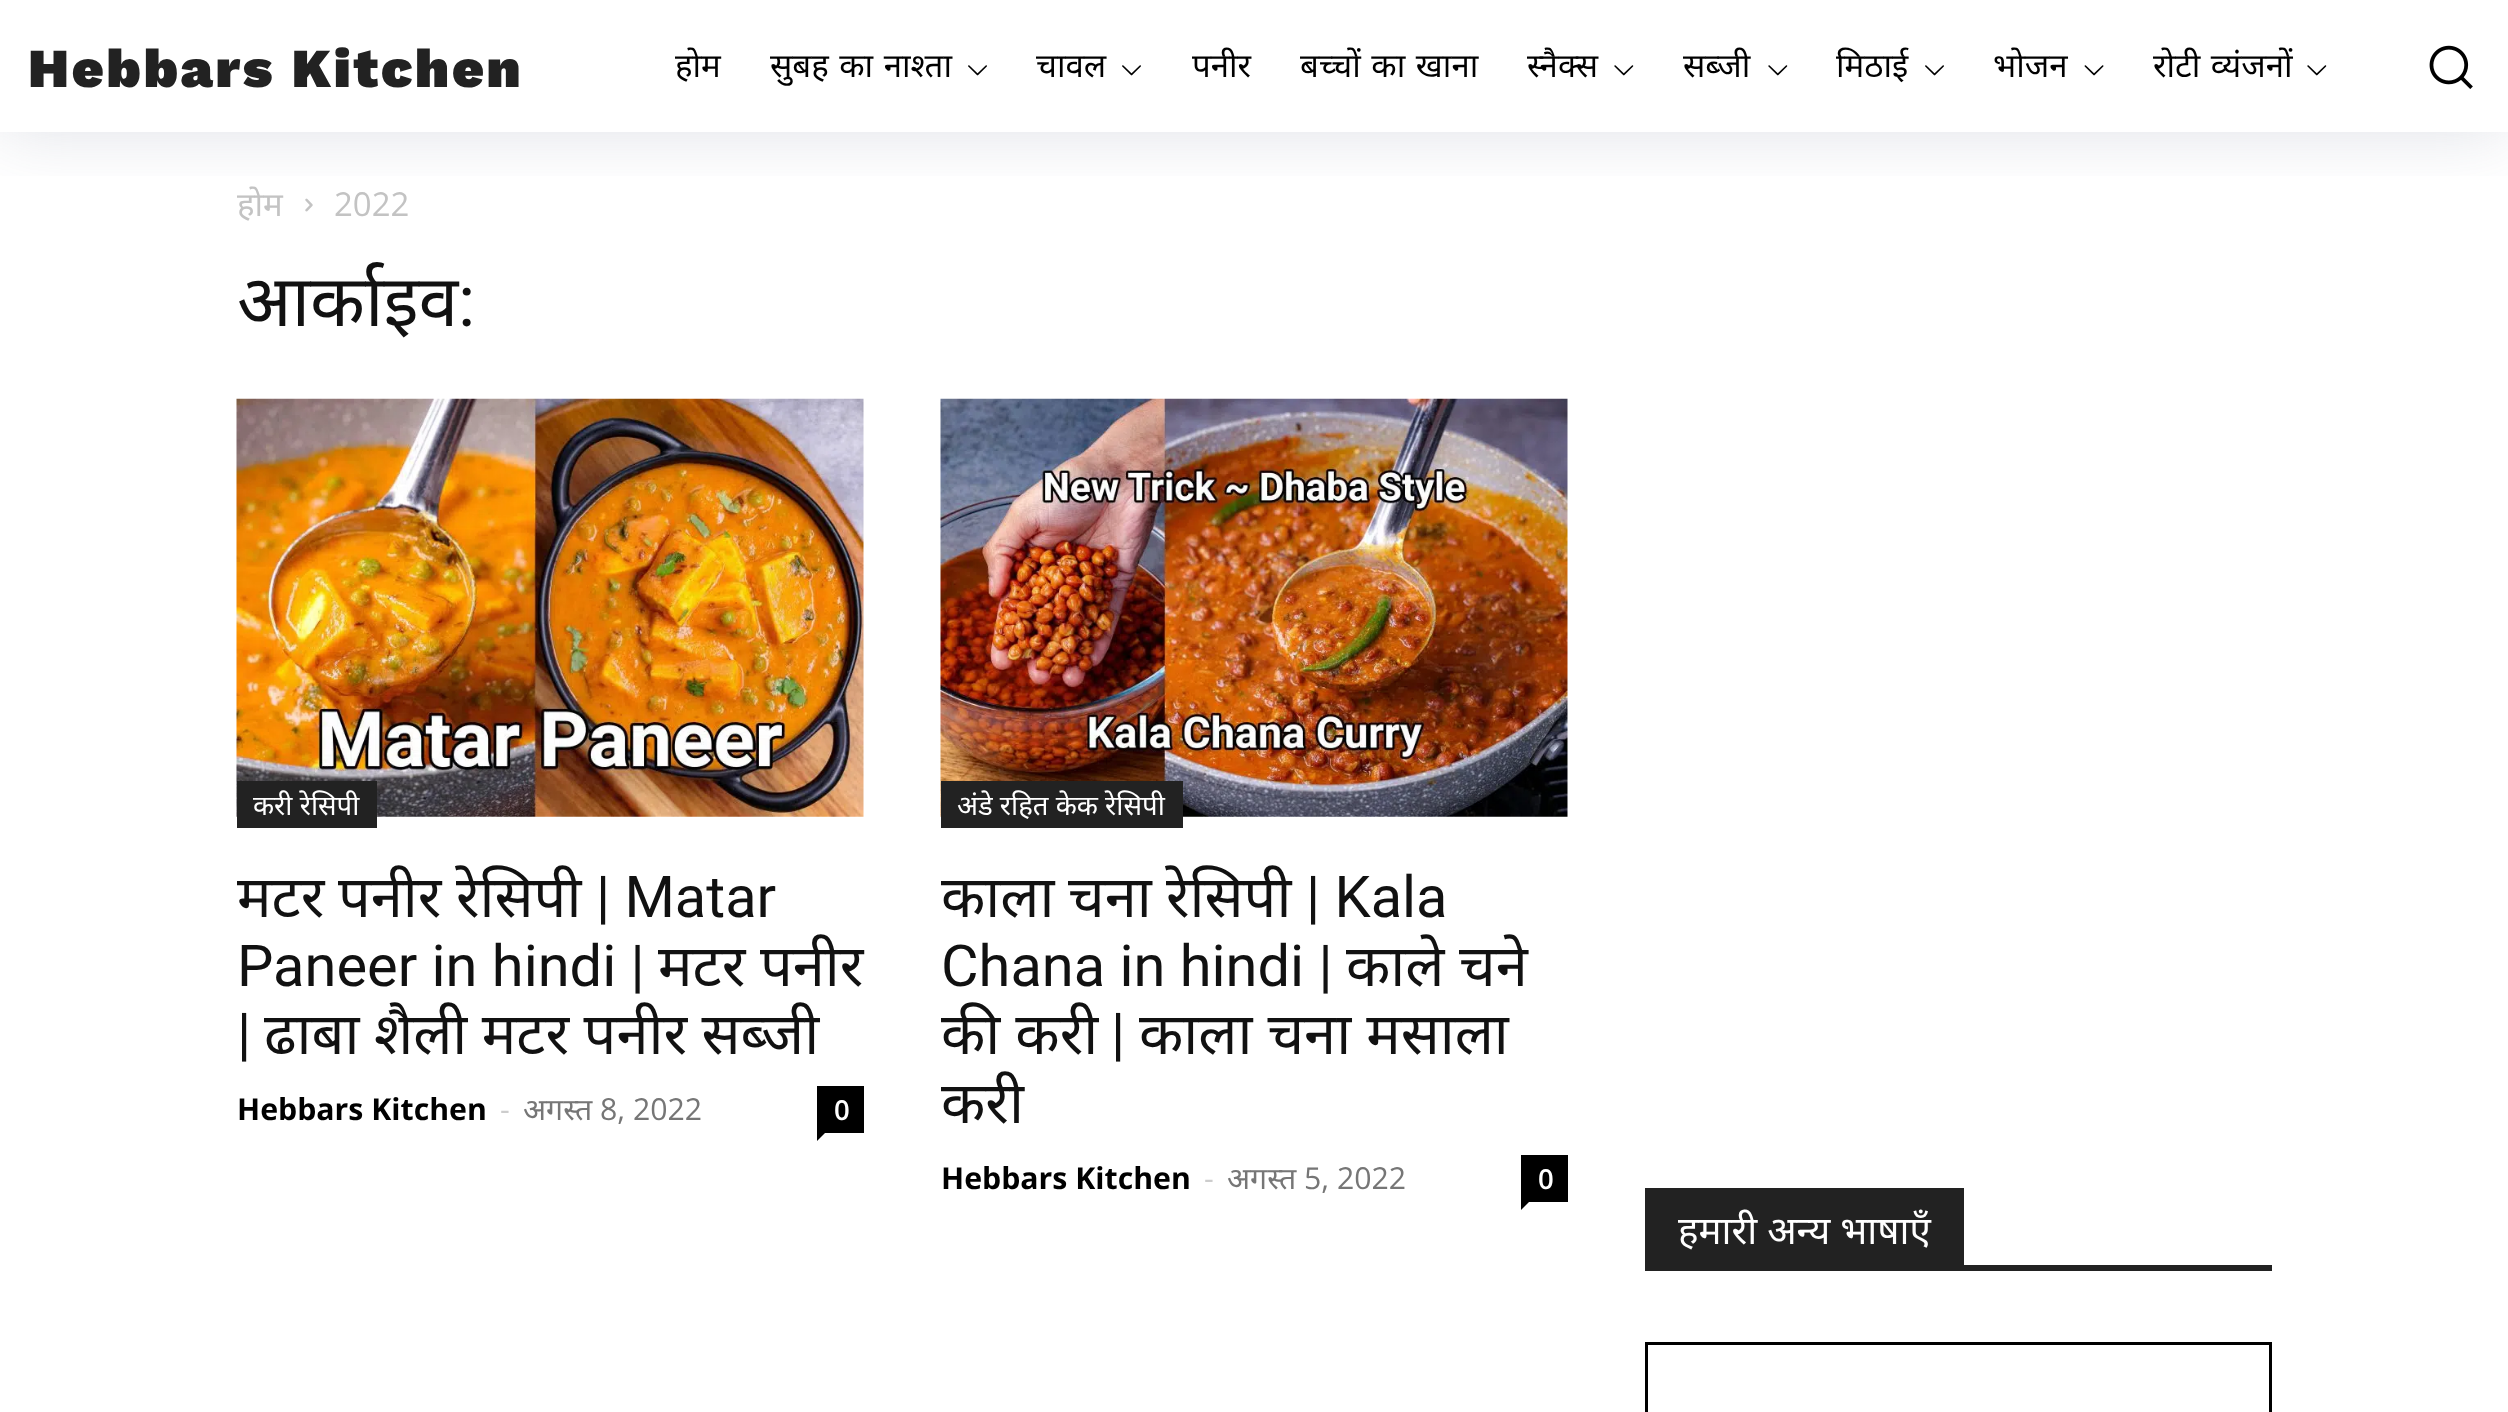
<svg xmlns="http://www.w3.org/2000/svg" width="2508" height="1412" viewBox="0 0 2508 1412">
  <style>
    .t1 { font: 900 55px Work Sans; letter-spacing: 2.75px; fill: #222; }
    .t2 { font: 33px Noto Sans; fill: #000; }
    .t3 { font: 33px Noto Sans; fill: #c3c3c3; }
    .t4 { font: 33px Open Sans; fill: #c3c3c3; }
    .t5 { font: 71.5px Noto Sans; fill: #111; }
    .t6 { font: 71.5px Roboto; fill: #111; }
    .t7 { font: 27.5px Noto Sans; fill: #fff; }
    .t8 { font: 57.75px Noto Sans; fill: #111; }
    .t9 { font: 57.75px Roboto; fill: #111; }
    .t10 { font: bold 30.25px Open Sans; fill: #000; }
    .t11 { font: 30.25px Open Sans; fill: #ccc; }
    .t12 { font: 30.25px Noto Sans; fill: #767676; }
    .t13 { font: 30.25px Open Sans; fill: #767676; }
    .t14 { font: 600 27.5px Open Sans; fill: #fff; }
    .t15 { font: 38.5px Noto Sans; fill: #fff; }
  </style>
  <defs>
    <clipPath id="clip1"><rect x="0" y="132" width="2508" height="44"/></clipPath>
  </defs>
  <rect width="100%" height="100%" fill="#fff"/>
  <image x="305" y="198" width="8" height="14" href="images/5.png"/>
  <g clip-path="url(#clip1)">
    <rect x="0" y="0" width="2508" height="132" fill="#5e6a8733" filter="blur(34.5px)"/>
  </g>
  <text x="28" y="87" class="t1">Hebbars Kitchen</text>
  <text x="675" y="77" class="t2">होम</text>
  <text x="770" y="77" word-spacing="2" class="t2">सुबह का नाश्ता</text>
  <image x="968" y="65" width="19" height="11" href="images/1.png"/>
  <text x="1036" y="77" class="t2">चावल</text>
  <image x="1122" y="65" width="19" height="11" href="images/1.png"/>
  <text x="1192" y="77" class="t2">पनीर</text>
  <text x="1300" y="77" word-spacing="2" class="t2">बच्चों का खाना</text>
  <text x="1527" y="77" class="t2">स्नैक्स</text>
  <image x="1614" y="65" width="20" height="11" href="images/2.png"/>
  <text x="1683" y="77" class="t2">सब्जी</text>
  <image x="1768" y="65" width="20" height="11" href="images/2.png"/>
  <text x="1836" y="77" class="t2">मिठाई</text>
  <image x="1925" y="65" width="19" height="11" href="images/1.png"/>
  <text x="1993" y="77" class="t2">भोजन</text>
  <image x="2084" y="65" width="20" height="11" href="images/3.png"/>
  <text x="2153" y="77" word-spacing="2" class="t2">रोटी व्यंजनों</text>
  <image x="2307" y="65" width="20" height="11" href="images/2.png"/>
  <image x="2429" y="45" width="44" height="44" href="images/4.png"/>
  <text x="237" y="216" class="t3">होम</text>
  <text x="334" y="216" class="t4">2022</text>
  <text x="237" y="326" class="t5">आर्काइव</text>
  <text x="458" y="326" class="t6">:</text>
  <image x="236" y="398" width="628" height="419" href="images/6.png"/>
  <rect x="237" y="781" width="140" height="47" fill="#222"/>
  <text x="253" y="815" class="t7">करी रेसिपी</text>
  <text x="237" y="917" class="t8">मटर</text>
  <text x="338" y="917" class="t8">पनीर</text>
  <text x="456" y="917" class="t8">रेसिपी</text>
  <text x="596" y="917" class="t9">| Matar</text>
  <text x="237" y="986" class="t9">Paneer in hindi |</text>
  <text x="658" y="986" class="t8">मटर</text>
  <text x="760" y="986" class="t8">पनीर</text>
  <text x="237" y="1054" class="t9">|</text>
  <text x="264" y="1054" word-spacing="-0.5" class="t8">ढाबा शैली मटर पनीर सब्जी</text>
  <text x="237" y="1120" class="t10">Hebbars Kitchen</text>
  <text x="500" y="1120" class="t11">-</text>
  <text x="523" y="1120" class="t12">अगस्त</text>
  <text x="600" y="1120" class="t13">8, 2022</text>
  <rect x="817" y="1086" width="47" height="47" fill="#000"/>
  <text x="834" y="1120" class="t14">0</text>
  <path d="M817 1133H825L817 1141Z" fill="#000"/>
  <image x="940" y="398" width="628" height="419" href="images/7.png"/>
  <rect x="941" y="781" width="242" height="47" fill="#222"/>
  <text x="957" y="815" class="t7">अंडे रहित केक रेसिपी</text>
  <text x="941" y="917" class="t8">काला</text>
  <text x="1068" y="917" class="t8">चना</text>
  <text x="1166" y="917" class="t8">रेसिपी</text>
  <text x="1306" y="917" class="t9">| Kala</text>
  <text x="941" y="986" class="t9">Chana in hindi |</text>
  <text x="1346" y="986" class="t8">काले</text>
  <text x="1459" y="986" class="t8">चने</text>
  <text x="941" y="1054" class="t8">की करी</text>
  <text x="1111" y="1054" class="t9">|</text>
  <text x="1139" y="1054" class="t8">काला चना मसाला</text>
  <text x="941" y="1123" class="t8">करी</text>
  <text x="941" y="1189" class="t10">Hebbars Kitchen</text>
  <text x="1204" y="1189" class="t11">-</text>
  <text x="1227" y="1189" class="t12">अगस्त</text>
  <text x="1304" y="1189" class="t13">5, 2022</text>
  <rect x="1521" y="1155" width="47" height="47" fill="#000"/>
  <text x="1538" y="1189" class="t14">0</text>
  <path d="M1521 1202H1529L1521 1210Z" fill="#000"/>
  <rect x="1645" y="1265" width="627" height="6" fill="#222"/>
  <rect x="1645" y="1188" width="319" height="77" fill="#222"/>
  <text x="1678" y="1244" class="t15">हमारी अन्य भाषाएँ</text>
  <rect x="1646.5" y="1343.5" width="624" height="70" fill="none" stroke="#000" stroke-width="3"/>
</svg>
